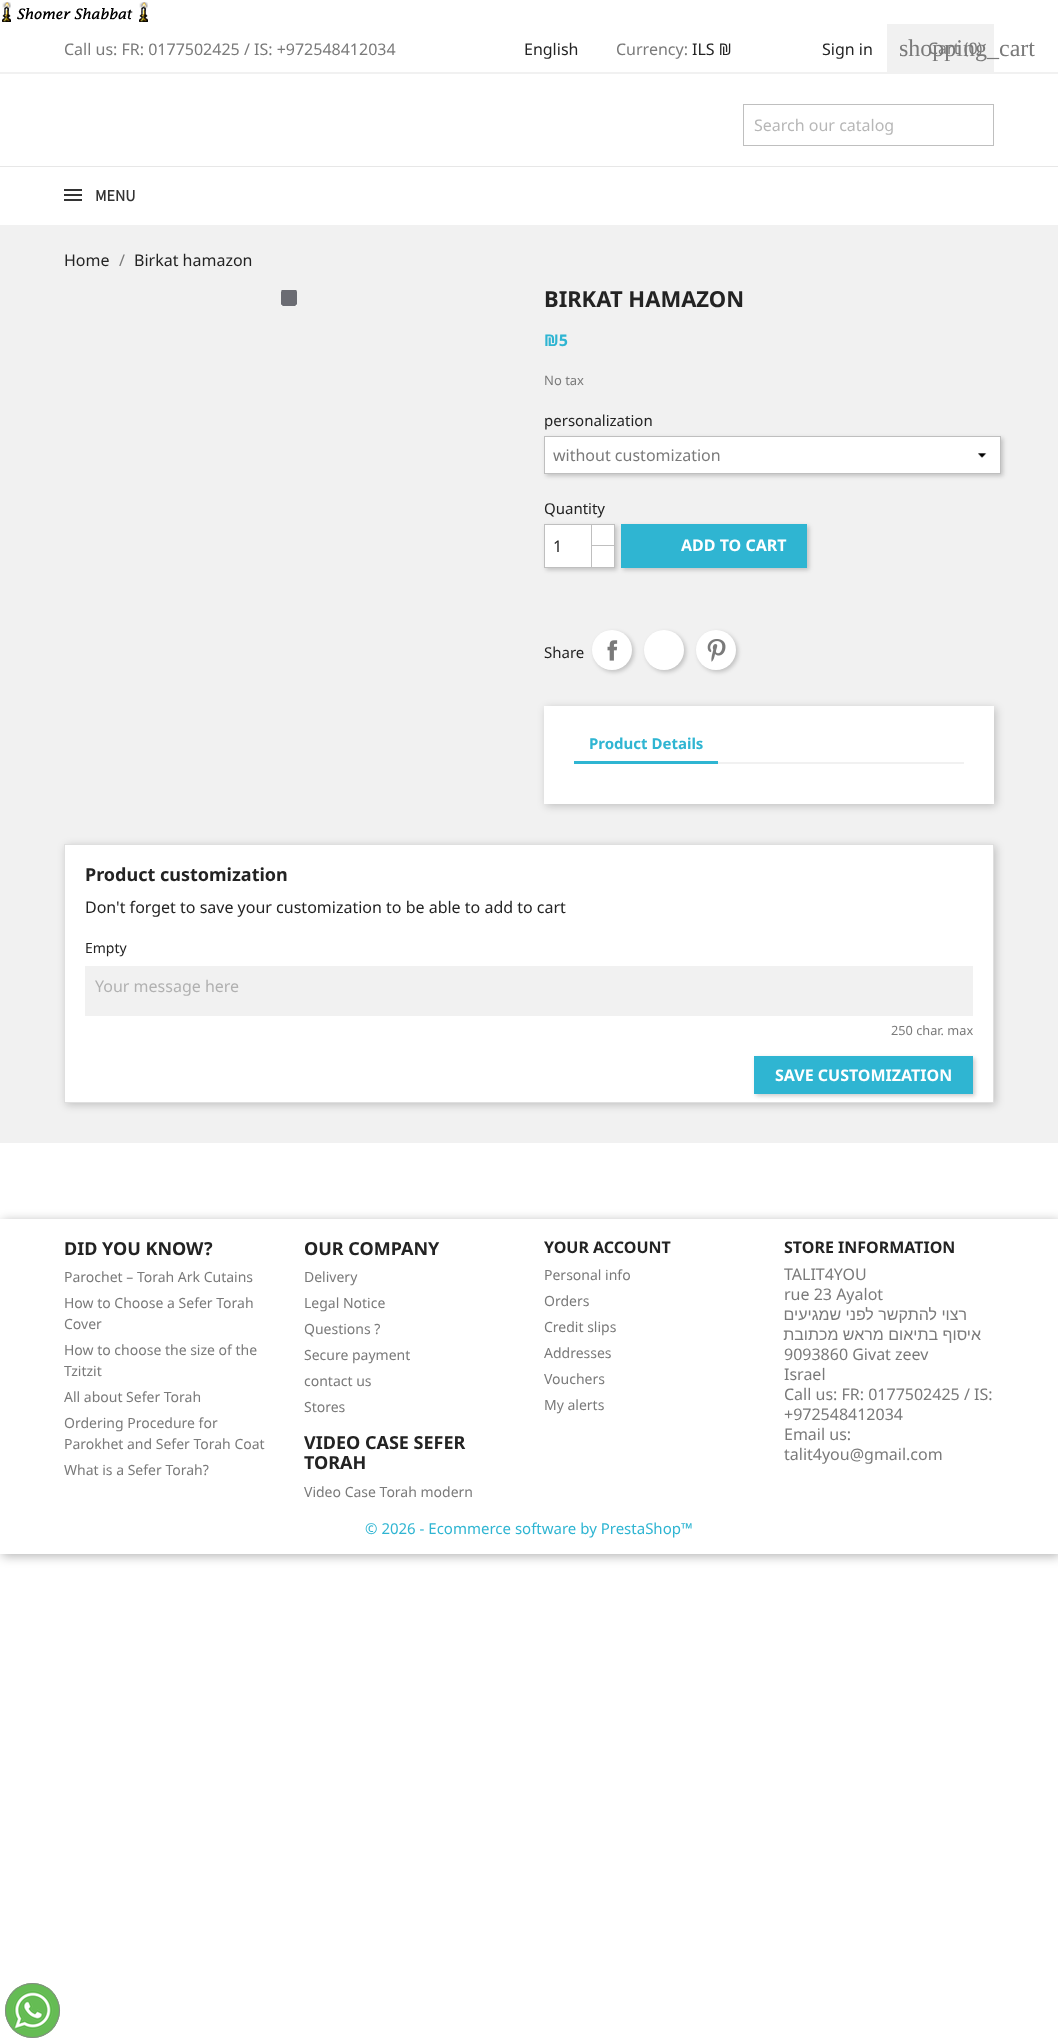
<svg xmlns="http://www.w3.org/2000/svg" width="1058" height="2043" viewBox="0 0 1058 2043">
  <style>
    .t1 { font: 16px Noto Sans; fill: #7a7a7a; }
    .t2 { font: 16px Noto Sans; fill: #232323; }
    .t3 { font: 24px Liberation Serif; fill: #7a7a7a; }
    .t4 { font: 16px Noto Sans; fill: #b7b7b7; }
    .t5 { font: bold 16px Assistant; fill: #333; }
    .t6 { font: bold 22px Noto Sans; fill: #232323; }
    .t7 { font: bold 16px Noto Sans; fill: #2fb5d2; }
    .t8 { font: 13px Noto Sans; fill: #7a7a7a; }
    .t9 { font: 15px Noto Sans; fill: #232323; }
    .t10 { font: bold 16px Noto Sans; fill: #fff; }
    .t11 { font: bold 15px Noto Sans; fill: #2fb5d2; }
    .t12 { font: bold 18px Noto Sans; fill: #232323; }
    .t13 { font: 14px Noto Sans; fill: #232323; }
    .t14 { font: 16px Noto Sans; fill: #b1b1b1; }
    .t15 { font: 12.75px Noto Sans; fill: #7a7a7a; }
    .t16 { font: 14px Noto Sans; fill: #7a7a7a; }
    .t17 { font: bold 16px Noto Sans; fill: #232323; }
    .t18 { font: 16px Liberation Sans; direction: rtl; fill: #7a7a7a; }
    .t19 { font: 15px Noto Sans; fill: #2fb5d2; }
  </style>
  <defs>
    <clipPath id="clip1"><rect x="281" y="290" width="16" height="16"/></clipPath>
    <clipPath id="clip2"><path d="M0 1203H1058V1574H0ZM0 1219H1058V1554H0Z" clip-rule="evenodd"/></clipPath>
  </defs>
  <rect width="100%" height="100%" fill="#fff"/>
  <image x="2" y="2" width="146" height="20" href="images/1.png"/>
  <rect x="0" y="72" width="1058" height="2" fill="#f1f1f1"/>
  <text x="64" y="55" class="t1">Call us: FR: 0177502425 / IS: +972548412034</text>
  <text x="524" y="55" class="t2">English</text>
  <text x="616" y="55" class="t1">Currency:</text>
  <text x="692" y="55" class="t2">ILS ₪</text>
  <text x="822" y="55" class="t2">Sign in</text>
  <rect x="887" y="24" width="107" height="48" fill="#f1f1f1"/>
  <text x="899" y="56" class="t3">shopping_cart</text>
  <text x="928" y="54" class="t1">Cart (0)</text>
  <rect x="743.5" y="104.5" width="250" height="41" fill="none" stroke="#bfbfbf"/>
  <text x="754" y="131" class="t4">Search our catalog</text>
  <rect x="0" y="166" width="1058" height="1" fill="#e7e7e7"/>
  <rect x="64" y="189" width="18" height="2" fill="#333"/>
  <rect x="64" y="194" width="18" height="2" fill="#333"/>
  <rect x="64" y="199" width="18" height="2" fill="#333"/>
  <text x="95" y="201" class="t5">MENU</text>
  <rect x="0" y="225" width="1058" height="918" fill="#f1f1f1"/>
  <text x="64" y="266" class="t2">Home</text>
  <text x="119" y="266" class="t1">/</text>
  <text x="134" y="266" class="t2">Birkat hamazon</text>
  <g clip-path="url(#clip1)">
    <circle cx="289" cy="298" r="18" fill="#6b6c73"/>
    <path d="M297 290C299 292.5 300 295 300 298C300 311 281 313 278 300C277.5 296.5 278.5 293 281 290" fill="none" stroke="#fff" stroke-width="2"/>
  </g>
  <text x="544" y="307" class="t6">BIRKAT HAMAZON</text>
  <text x="544" y="346" class="t7">₪5</text>
  <text x="544" y="385" class="t8">No tax</text>
  <text x="544" y="426" class="t9">personalization</text>
  <rect x="546" y="438" width="457" height="38" fill="#00000033" filter="blur(2px)"/>
  <rect x="545" y="437" width="455" height="36" fill="#fff"/>
  <image x="978" y="453" width="9" height="5" href="images/2.png"/>
  <rect x="544.5" y="436.5" width="456" height="37" fill="none" stroke="#bfbfbf"/>
  <text x="553" y="461" class="t1">without customization</text>
  <text x="544" y="514" class="t9">Quantity</text>
  <rect x="623" y="526" width="186" height="44" fill="#00000033" filter="blur(2px)"/>
  <rect x="621" y="524" width="186" height="44" fill="#2fb5d2"/>
  <rect x="546" y="526" width="71" height="44" fill="#00000033" filter="blur(2px)"/>
  <rect x="592" y="525" width="22" height="20" fill="#fff"/>
  <rect x="591.5" y="524.5" width="23" height="22" fill="none" stroke="#bfbfbf"/>
  <rect x="591.5" y="545.5" width="23" height="22" fill="#fff" stroke="#bfbfbf"/>
  <rect x="544.5" y="524.5" width="47" height="43" fill="#fff" stroke="#bfbfbf"/>
  <text x="553" y="552" class="t2">1</text>
  <text x="681" y="551" class="t10">ADD TO CART</text>
  <text x="544" y="658" class="t9">Share</text>
  <rect x="594" y="632" width="40" height="40" rx="20" fill="#00000033" filter="blur(2px)"/>
  <circle cx="612" cy="650" r="20" fill="#fff"/>
  <image x="607" y="640" width="11" height="21" href="images/3.png"/>
  <rect x="646" y="632" width="40" height="40" rx="20" fill="#00000033" filter="blur(2px)"/>
  <circle cx="664" cy="650" r="20" fill="#fff"/>
  <rect x="698" y="632" width="40" height="40" rx="20" fill="#00000033" filter="blur(2px)"/>
  <circle cx="716" cy="650" r="20" fill="#fff"/>
  <image x="707" y="639" width="19" height="23" href="images/4.png"/>
  <rect x="546" y="708" width="450" height="98" fill="#00000033" filter="blur(4px)"/>
  <rect x="544" y="706" width="450" height="98" fill="#fff"/>
  <rect x="718" y="762" width="246" height="2" fill="#f1f1f1"/>
  <rect x="574" y="761" width="144" height="3" fill="#2fb5d2"/>
  <text x="589" y="749" class="t11">Product Details</text>
  <rect x="66" y="846" width="930" height="259" fill="#00000033" filter="blur(4px)"/>
  <rect x="64.5" y="844.5" width="929" height="258" fill="#fff" stroke="#dfdfdf"/>
  <text x="85" y="881" class="t12">Product customization</text>
  <text x="85" y="913" class="t2">Don't forget to save your customization to be able to add to cart</text>
  <text x="85" y="953" class="t13">Empty</text>
  <rect x="85" y="966" width="888" height="50" fill="#f1f1f1"/>
  <text x="95" y="992" class="t14">Your message here</text>
  <text x="891" y="1035" class="t15">250 char. max</text>
  <rect x="756" y="1058" width="219" height="38" fill="#00000033" filter="blur(2px)"/>
  <rect x="754" y="1056" width="219" height="38" fill="#2fb5d2"/>
  <text x="775" y="1081" class="t10">SAVE CUSTOMIZATION</text>
  <g clip-path="url(#clip2)">
    <rect x="2" y="1221" width="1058" height="335" fill="#0000004d" filter="blur(5.5px)"/>
  </g>
  <text x="64" y="1255" class="t12">DID YOU KNOW?</text>
  <text x="64" y="1282" class="t16">Parochet – Torah Ark Cutains</text>
  <text x="64" y="1308" class="t16">How to Choose a Sefer Torah</text>
  <text x="64" y="1329" class="t16">Cover</text>
  <text x="64" y="1355" class="t16">How to choose the size of the</text>
  <text x="64" y="1376" class="t16">Tzitzit</text>
  <text x="64" y="1402" class="t16">All about Sefer Torah</text>
  <text x="64" y="1428" class="t16">Ordering Procedure for</text>
  <text x="64" y="1449" class="t16">Parokhet and Sefer Torah Coat</text>
  <text x="64" y="1475" class="t16">What is a Sefer Torah?</text>
  <text x="304" y="1255" class="t12">OUR COMPANY</text>
  <text x="304" y="1282" class="t16">Delivery</text>
  <text x="304" y="1308" class="t16">Legal Notice</text>
  <text x="304" y="1334" class="t16">Questions ?</text>
  <text x="304" y="1360" class="t16">Secure payment</text>
  <text x="304" y="1386" class="t16">contact us</text>
  <text x="304" y="1412" class="t16">Stores</text>
  <text x="304" y="1449" class="t12">VIDEO CASE SEFER</text>
  <text x="304" y="1469" class="t12">TORAH</text>
  <text x="304" y="1497" class="t16">Video Case Torah modern</text>
  <text x="544" y="1253" class="t17">YOUR ACCOUNT</text>
  <text x="544" y="1280" class="t16">Personal info</text>
  <text x="544" y="1306" class="t16">Orders</text>
  <text x="544" y="1332" class="t16">Credit slips</text>
  <text x="544" y="1358" class="t16">Addresses</text>
  <text x="544" y="1384" class="t16">Vouchers</text>
  <text x="544" y="1410" class="t16">My alerts</text>
  <text x="784" y="1253" class="t17">STORE INFORMATION</text>
  <text x="784" y="1280" class="t1">TALIT4YOU</text>
  <text x="784" y="1300" class="t1">rue 23 Ayalot</text>
  <text x="967" y="1320" class="t18">רצוי להתקשר לפני שמגיעים</text>
  <text x="981" y="1340" class="t18">איסוף בתיאום מראש מכתובת</text>
  <text x="784" y="1360" class="t1">9093860 Givat zeev</text>
  <text x="784" y="1380" class="t1">Israel</text>
  <text x="784" y="1400" class="t1">Call us: FR: 0177502425 / IS:</text>
  <text x="784" y="1420" class="t1">+972548412034</text>
  <text x="784" y="1440" class="t1">Email us:</text>
  <text x="784" y="1460" class="t1">talit4you@gmail.com</text>
  <circle cx="32.5" cy="2010.5" r="27.5" fill="#65bc54"/>
  <image x="10" y="1988" width="45" height="45" href="images/5.png"/>
  <circle cx="32.5" cy="2010.5" r="27" fill="none" stroke="#888"/>
  <text x="365" y="1534" class="t19">© 2026 - Ecommerce software by PrestaShop™</text>
</svg>
